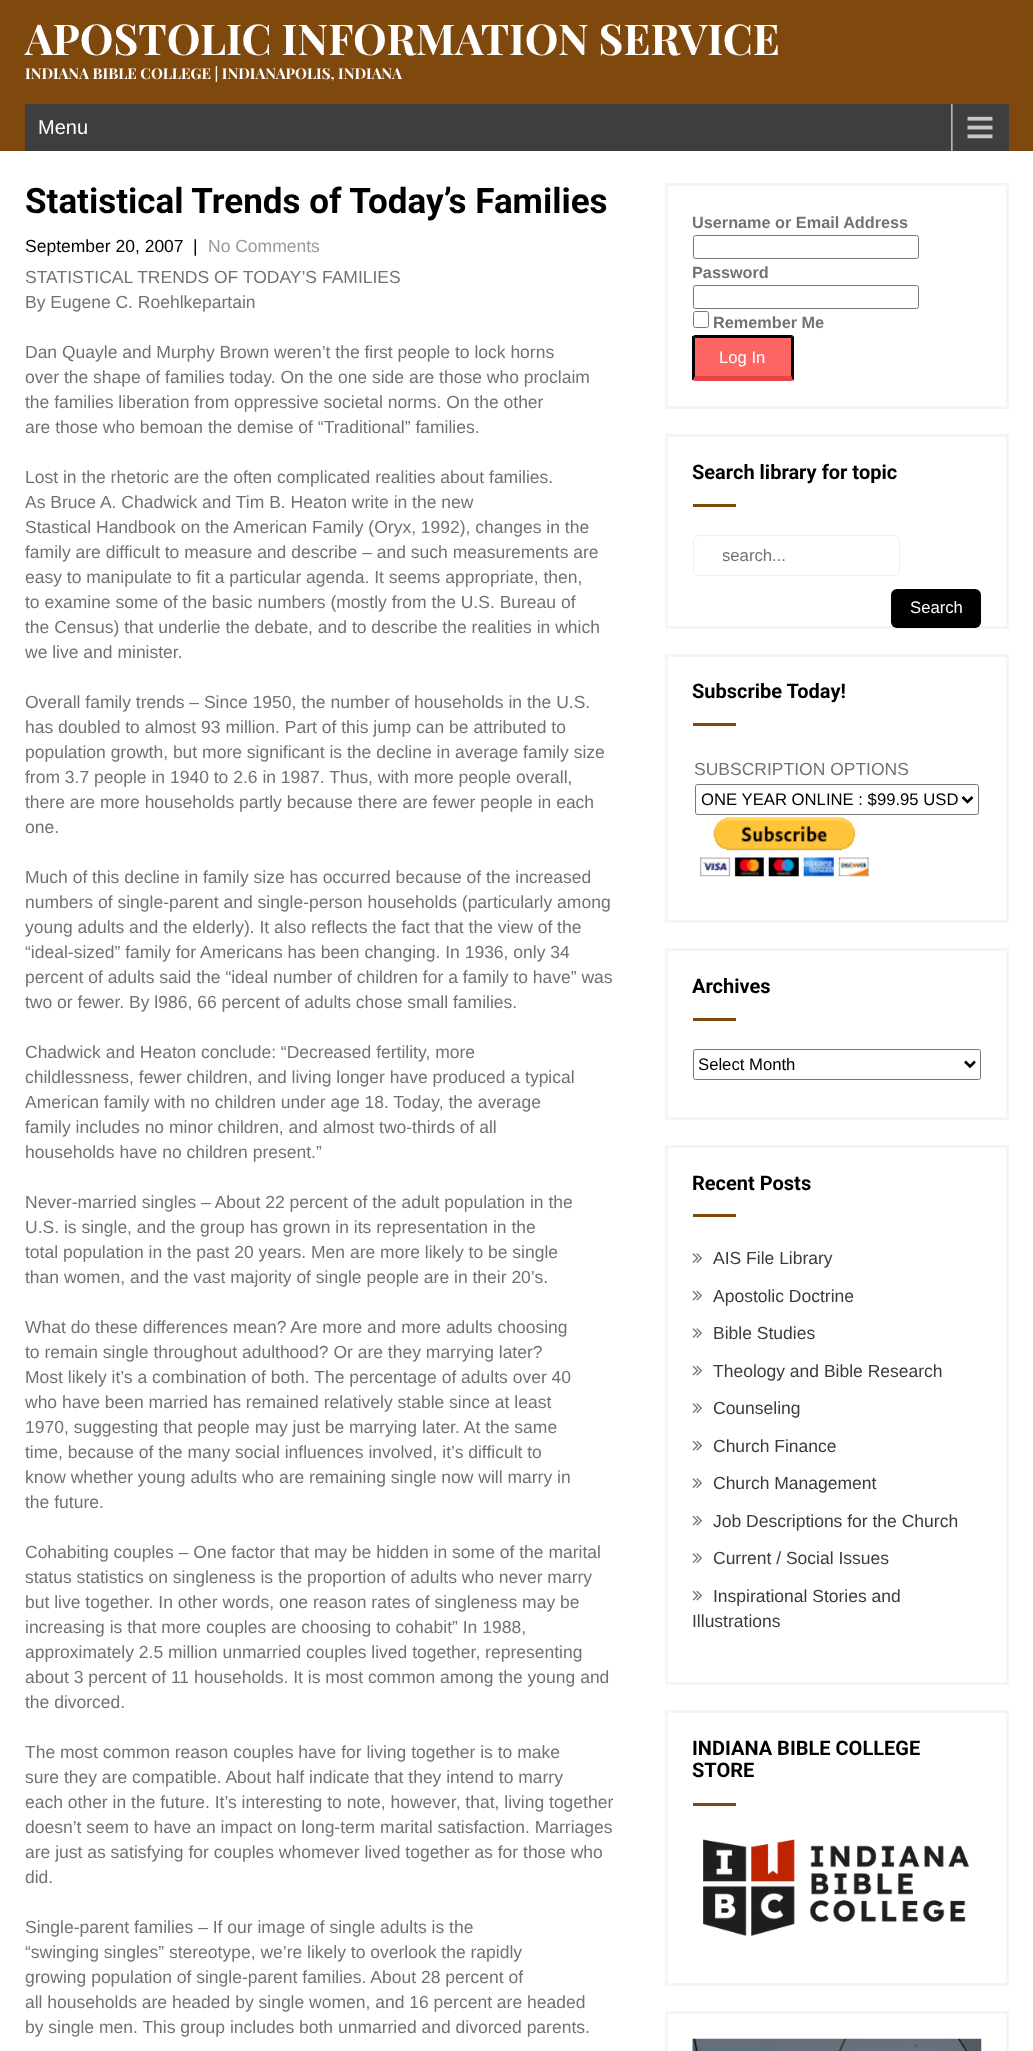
<svg xmlns="http://www.w3.org/2000/svg" width="1033" height="2051" viewBox="0 0 1033 2051">
  <style>
    .t1 { font: bold 42.5px Playfair Display; fill: #fff; }
    .t2 { font: bold 15px Playfair Display; fill: #fff; }
    .t3 { font: 20px Liberation Sans; fill: #fff; }
    .t4 { font: bold 35px Roboto; fill: #000; }
    .t5 { font: 17.5px Liberation Sans; fill: #000; }
    .t6 { font: 17.5px Liberation Sans; fill: #999; }
    .t7 { font: 17.5px Liberation Sans; fill: #727370; }
    .t8 { font: bold 16.25px Liberation Sans; fill: #727370; }
    .t9 { font: 16.7px Liberation Sans; fill: #fff; }
    .t10 { font: bold 20px Roboto; fill: #000; }
    .t11 { font: 16.7px Liberation Sans; fill: #727370; }
    .t12 { font: 16.7px Liberation Sans; fill: #000; }
    .t13 { font: 17.5px Liberation Sans; fill: #3b3b3b; }
  </style>
  <defs>
    <clipPath id="clip1"><rect x="723" y="546" width="131" height="19"/></clipPath>
  </defs>
  <rect width="100%" height="100%" fill="#fff"/>
  <rect x="0" y="0" width="1033" height="151" fill="#7f480c"/>
  <text x="25" y="55" class="t1">APOSTOLIC INFORMATION SERVICE</text>
  <text x="25" y="79" class="t2">INDIANA BIBLE COLLEGE | INDIANAPOLIS, INDIANA</text>
  <rect x="25" y="104" width="984" height="47" fill="#3e3e3e"/>
  <image x="951" y="103" width="42" height="49" href="images/1.png"/>
  <text x="38" y="134" class="t3">Menu</text>
  <text x="25" y="213" class="t4">Statistical Trends of Today’s Families</text>
  <text x="25" y="252" class="t5">September 20, 2007</text>
  <text x="193" y="252" class="t5">|</text>
  <text x="208" y="252" class="t6">No Comments</text>
  <text x="25" y="283" class="t7">STATISTICAL TRENDS OF TODAY’S FAMILIES</text>
  <text x="25" y="308" class="t7">By Eugene C. Roehlkepartain</text>
  <text x="25" y="358" class="t7">Dan Quayle and Murphy Brown weren’t the first people to lock horns</text>
  <text x="25" y="383" class="t7">over the shape of families today. On the one side are those who proclaim</text>
  <text x="25" y="408" class="t7">the families liberation from oppressive societal norms. On the other</text>
  <text x="25" y="433" class="t7">are those who bemoan the demise of “Traditional” families.</text>
  <text x="25" y="483" class="t7">Lost in the rhetoric are the often complicated realities about families.</text>
  <text x="25" y="508" class="t7">As Bruce A. Chadwick and Tim B. Heaton write in the new</text>
  <text x="25" y="533" class="t7">Stastical Handbook on the American Family (Oryx, 1992), changes in the</text>
  <text x="25" y="558" class="t7">family are difficult to measure and describe – and such measurements are</text>
  <text x="25" y="583" class="t7">easy to manipulate to fit a particular agenda. It seems appropriate, then,</text>
  <text x="25" y="608" class="t7">to examine some of the basic numbers (mostly from the U.S. Bureau of</text>
  <text x="25" y="633" class="t7">the Census) that underlie the debate, and to describe the realities in which</text>
  <text x="25" y="658" class="t7">we live and minister.</text>
  <text x="25" y="708" class="t7">Overall family trends – Since 1950, the number of households in the U.S.</text>
  <text x="25" y="733" class="t7">has doubled to almost 93 million. Part of this jump can be attributed to</text>
  <text x="25" y="758" class="t7">population growth, but more significant is the decline in average family size</text>
  <text x="25" y="783" class="t7">from 3.7 people in 1940 to 2.6 in 1987. Thus, with more people overall,</text>
  <text x="25" y="808" class="t7">there are more households partly because there are fewer people in each</text>
  <text x="25" y="833" class="t7">one.</text>
  <text x="25" y="883" class="t7">Much of this decline in family size has occurred because of the increased</text>
  <text x="25" y="908" class="t7">numbers of single-parent and single-person households (particularly among</text>
  <text x="25" y="933" class="t7">young adults and the elderly). It also reflects the fact that the view of the</text>
  <text x="25" y="958" class="t7">“ideal-sized” family for Americans has been changing. In 1936, only 34</text>
  <text x="25" y="983" class="t7">percent of adults said the “ideal number of children for a family to have” was</text>
  <text x="25" y="1008" class="t7">two or fewer. By l986, 66 percent of adults chose small families.</text>
  <text x="25" y="1058" class="t7">Chadwick and Heaton conclude: “Decreased fertility, more</text>
  <text x="25" y="1083" class="t7">childlessness, fewer children, and living longer have produced a typical</text>
  <text x="25" y="1108" class="t7">American family with no children under age 18. Today, the average</text>
  <text x="25" y="1133" class="t7">family includes no minor children, and almost two-thirds of all</text>
  <text x="25" y="1158" class="t7">households have no children present.”</text>
  <text x="25" y="1208" class="t7">Never-married singles – About 22 percent of the adult population in the</text>
  <text x="25" y="1233" class="t7">U.S. is single, and the group has grown in its representation in the</text>
  <text x="25" y="1258" class="t7">total population in the past 20 years. Men are more likely to be single</text>
  <text x="25" y="1283" class="t7">than women, and the vast majority of single people are in their 20’s.</text>
  <text x="25" y="1333" class="t7">What do these differences mean? Are more and more adults choosing</text>
  <text x="25" y="1358" class="t7">to remain single throughout adulthood? Or are they marrying later?</text>
  <text x="25" y="1383" class="t7">Most likely it’s a combination of both. The percentage of adults over 40</text>
  <text x="25" y="1408" class="t7">who have been married has remained relatively stable since at least</text>
  <text x="25" y="1433" class="t7">1970, suggesting that people may just be marrying later. At the same</text>
  <text x="25" y="1458" class="t7">time, because of the many social influences involved, it’s difficult to</text>
  <text x="25" y="1483" class="t7">know whether young adults who are remaining single now will marry in</text>
  <text x="25" y="1508" class="t7">the future.</text>
  <text x="25" y="1558" class="t7">Cohabiting couples – One factor that may be hidden in some of the marital</text>
  <text x="25" y="1583" class="t7">status statistics on singleness is the proportion of adults who never marry</text>
  <text x="25" y="1608" class="t7">but live together. In other words, one reason rates of singleness may be</text>
  <text x="25" y="1633" class="t7">increasing is that more couples are choosing to cohabit” In 1988,</text>
  <text x="25" y="1658" class="t7">approximately 2.5 million unmarried couples lived together, representing</text>
  <text x="25" y="1683" class="t7">about 3 percent of 11 households. It is most common among the young and</text>
  <text x="25" y="1708" class="t7">the divorced.</text>
  <text x="25" y="1758" class="t7">The most common reason couples have for living together is to make</text>
  <text x="25" y="1783" class="t7">sure they are compatible. About half indicate that they intend to marry</text>
  <text x="25" y="1808" class="t7">each other in the future. It’s interesting to note, however, that, living together</text>
  <text x="25" y="1833" class="t7">doesn’t seem to have an impact on long-term marital satisfaction. Marriages</text>
  <text x="25" y="1858" class="t7">are just as satisfying for couples whomever lived together as for those who</text>
  <text x="25" y="1883" class="t7">did.</text>
  <text x="25" y="1933" class="t7">Single-parent families – If our image of single adults is the</text>
  <text x="25" y="1958" class="t7">“swinging singles” stereotype, we’re likely to overlook the rapidly</text>
  <text x="25" y="1983" class="t7">growing population of single-parent families. About 28 percent of</text>
  <text x="25" y="2008" class="t7">all households are headed by single women, and 16 percent are headed</text>
  <text x="25" y="2033" class="t7">by single men. This group includes both unmarried and divorced parents.</text>
  <rect x="666.5" y="184.5" width="341" height="223" fill="none" stroke="#f6f4f4" stroke-width="3"/>
  <text x="692" y="228" class="t8">Username or Email Address</text>
  <rect x="693.5" y="235.5" width="225" height="23" rx="2" fill="none" stroke="#767676"/>
  <text x="692" y="278" class="t8">Password</text>
  <rect x="693.5" y="285.5" width="225" height="23" rx="2" fill="none" stroke="#767676"/>
  <rect x="693.5" y="311.5" width="15" height="16" rx="2" fill="none" stroke="#767676"/>
  <text x="713" y="328" class="t8">Remember Me</text>
  <rect x="693" y="335" width="101" height="46" rx="2.5" fill="#ff6565"/>
  <path d="M695 335L693 336L696 338H791L793 336L791 335Z" fill="#000"/>
  <path d="M794 380H793L791 376V338L793 336L794 337Z" fill="#000"/>
  <path d="M793 380L791 381H695L693 380L695 376H791Z" fill="#e44545"/>
  <path d="M695 338V376L693 380H692V336H693L696 338Z" fill="#000"/>
  <text x="719" y="363" class="t9">Log In</text>
  <rect x="666.5" y="435.5" width="341" height="192" fill="none" stroke="#f6f4f4" stroke-width="3"/>
  <text x="692" y="479" class="t10">Search library for topic</text>
  <rect x="693" y="504" width="43" height="3" fill="#7f480c"/>
  <rect x="693.5" y="535.5" width="206" height="40" rx="5.5" fill="none" stroke="#eee"/>
  <g clip-path="url(#clip1)">
    <text x="722" y="561" class="t11">search...</text>
  </g>
  <rect x="891" y="589" width="90" height="39" rx="6" fill="#000"/>
  <text x="910" y="613" class="t9">Search</text>
  <rect x="666.5" y="655.5" width="341" height="266" fill="none" stroke="#f6f4f4" stroke-width="3"/>
  <text x="692" y="698" class="t10">Subscribe Today!</text>
  <rect x="693" y="723" width="43" height="3" fill="#7f480c"/>
  <text x="694" y="775" class="t7">SUBSCRIPTION OPTIONS</text>
  <rect x="695.5" y="784.5" width="283" height="30" rx="2" fill="none" stroke="#767676"/>
  <path d="M962.5 797L967.5 802L972.5 797" fill="none" stroke="#000" stroke-width="2.5"/>
  <text x="701" y="805" class="t12">ONE YEAR ONLINE : $99.95 USD</text>
  <image x="699" y="817" width="170" height="60" href="images/2.png"/>
  <rect x="666.5" y="949.5" width="341" height="169" fill="none" stroke="#f6f4f4" stroke-width="3"/>
  <text x="692" y="993" class="t10">Archives</text>
  <rect x="693" y="1018" width="43" height="3" fill="#7f480c"/>
  <rect x="693.5" y="1049.5" width="287" height="30" rx="2" fill="none" stroke="#767676"/>
  <path d="M965 1061.5L970 1066.5L975 1061.5" fill="none" stroke="#000" stroke-width="2.5"/>
  <text x="698" y="1070" class="t12">Select Month</text>
  <rect x="666.5" y="1146.5" width="341" height="537" fill="none" stroke="#f6f4f4" stroke-width="3"/>
  <text x="692" y="1190" class="t10">Recent Posts</text>
  <rect x="693" y="1214" width="43" height="3" fill="#7f480c"/>
  <image x="692" y="1253" width="10" height="10" href="images/3.png"/>
  <text x="713" y="1264" class="t13">AIS File Library</text>
  <image x="692" y="1290" width="10" height="11" href="images/4.png"/>
  <text x="713" y="1302" class="t13">Apostolic Doctrine</text>
  <image x="692" y="1328" width="10" height="10" href="images/3.png"/>
  <text x="713" y="1339" class="t13">Bible Studies</text>
  <image x="692" y="1365" width="10" height="11" href="images/4.png"/>
  <text x="713" y="1377" class="t13">Theology and Bible Research</text>
  <image x="692" y="1403" width="10" height="10" href="images/3.png"/>
  <text x="713" y="1414" class="t13">Counseling</text>
  <image x="692" y="1440" width="10" height="11" href="images/4.png"/>
  <text x="713" y="1452" class="t13">Church Finance</text>
  <image x="692" y="1478" width="10" height="10" href="images/3.png"/>
  <text x="713" y="1489" class="t13">Church Management</text>
  <image x="692" y="1515" width="10" height="11" href="images/4.png"/>
  <text x="713" y="1527" class="t13">Job Descriptions for the Church</text>
  <image x="692" y="1553" width="10" height="10" href="images/3.png"/>
  <text x="713" y="1564" class="t13">Current / Social Issues</text>
  <image x="692" y="1590" width="10" height="11" href="images/4.png"/>
  <text x="713" y="1602" class="t13">Inspirational Stories and</text>
  <text x="692" y="1627" class="t13">Illustrations</text>
  <rect x="666.5" y="1711.5" width="341" height="273" fill="none" stroke="#f6f4f4" stroke-width="3"/>
  <text x="692" y="1755" class="t10">INDIANA BIBLE COLLEGE</text>
  <text x="692" y="1777" class="t10">STORE</text>
  <rect x="693" y="1803" width="43" height="3" fill="#7f480c"/>
  <image x="703" y="1839" width="267" height="97" href="images/5.png"/>
  <rect x="666.5" y="2012.5" width="341" height="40" fill="none" stroke="#f6f4f4" stroke-width="3"/>
  <image x="692" y="2038" width="290" height="13" href="images/6.png"/>
</svg>
